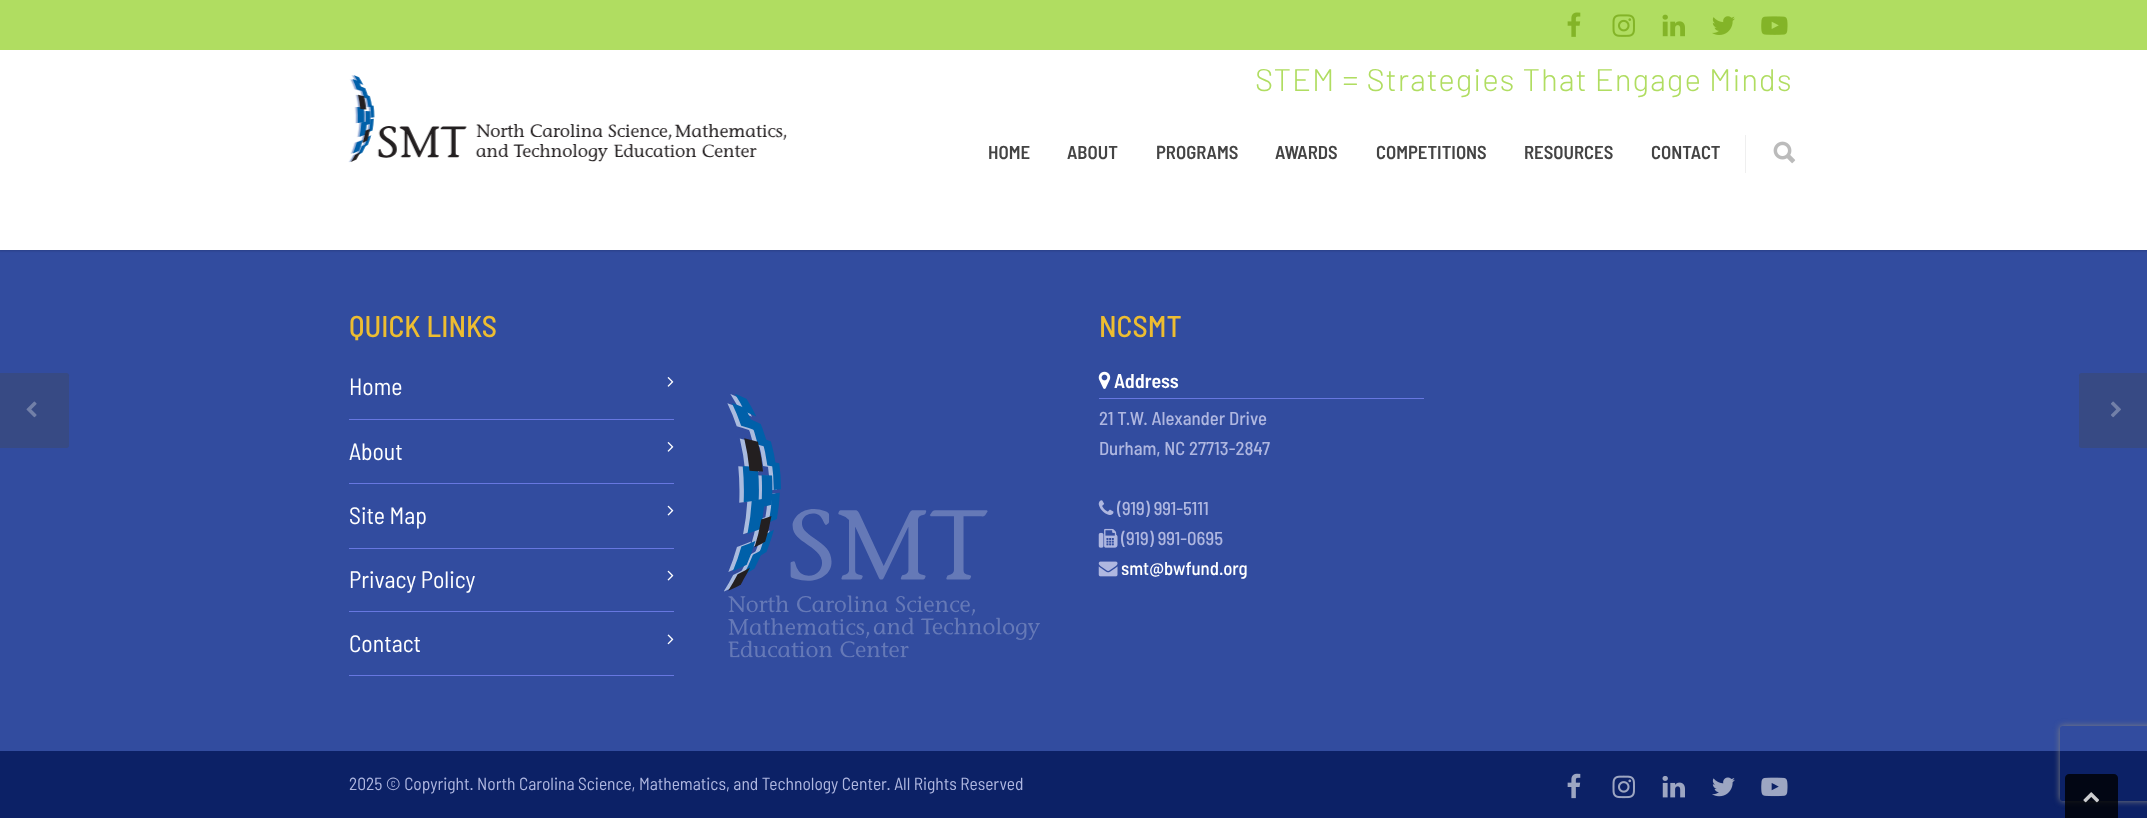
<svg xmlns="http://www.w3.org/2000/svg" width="2147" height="818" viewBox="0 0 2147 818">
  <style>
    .t1 { font: 300 31.25px Barlow; letter-spacing: 0.95px; fill: #b0dd61; }
    .t2 { font: 600 18.75px Barlow Semi Condensed; fill: #444; }
    .t3 { font: 500 30px Barlow Semi Condensed; fill: #edbd31; }
    .t4 { font: 23.75px Barlow Semi Condensed; fill: #fff; }
    .t5 { font: 600 20px Barlow Semi Condensed; fill: #fff; }
    .t6 { font: 500 18.75px Barlow Semi Condensed; fill: #afb7e0; }
    .t7 { font: 500 18.75px Barlow Semi Condensed; fill: #fff; }
    .t8 { font: 17.5px Barlow Semi Condensed; fill: #afb7e0; }
  </style>
  <defs>
    <clipPath id="clip1"><path d="M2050 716H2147V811H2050ZM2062.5 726H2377.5C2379 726 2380 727 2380 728.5V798.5C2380 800 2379 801 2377.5 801H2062.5C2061 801 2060 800 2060 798.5V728.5C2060 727 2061 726 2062.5 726Z" clip-rule="evenodd"/></clipPath>
  </defs>
  <rect width="100%" height="100%" fill="#324c9f"/>
  <rect x="-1" y="-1" width="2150" height="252" fill="#00000029" filter="blur(1px)"/>
  <rect x="0" y="50" width="2147" height="200" fill="#fff"/>
  <rect x="0" y="0" width="2147" height="50" fill="#b0dd61"/>
  <image x="1567" y="12" width="14" height="25" href="images/1.png"/>
  <image x="1612" y="14" width="23" height="23" href="images/2.png"/>
  <image x="1662" y="14" width="23" height="23" href="images/3.png"/>
  <image x="1712" y="16" width="23" height="19" href="images/4.png"/>
  <image x="1761" y="16" width="27" height="19" href="images/5.png"/>
  <image x="348" y="75" width="439" height="88" href="images/6.png"/>
  <text x="1255" y="91" class="t1">STEM = Strategies That Engage Minds</text>
  <text x="988" y="159" class="t2">HOME</text>
  <text x="1067" y="159" class="t2">ABOUT</text>
  <text x="1156" y="159" class="t2">PROGRAMS</text>
  <text x="1275" y="159" class="t2">AWARDS</text>
  <text x="1376" y="159" class="t2">COMPETITIONS</text>
  <text x="1524" y="159" class="t2">RESOURCES</text>
  <text x="1651" y="159" class="t2">CONTACT</text>
  <rect x="1745" y="135" width="1" height="38" fill="#efefef"/>
  <image x="1773" y="141" width="23" height="23" href="images/7.png"/>
  <text x="349" y="337" class="t3">QUICK LINKS</text>
  <rect x="349" y="419" width="325" height="1" fill="#6777e0"/>
  <text x="349" y="395" class="t4">Home</text>
  <image x="667" y="377" width="7" height="10" href="images/8.png"/>
  <rect x="349" y="483" width="325" height="1" fill="#6777e0"/>
  <text x="349" y="460" class="t4">About</text>
  <image x="667" y="442" width="7" height="10" href="images/8.png"/>
  <rect x="349" y="548" width="325" height="1" fill="#6777e0"/>
  <text x="349" y="524" class="t4">Site Map</text>
  <image x="667" y="505" width="7" height="11" href="images/9.png"/>
  <rect x="349" y="611" width="325" height="1" fill="#6777e0"/>
  <text x="349" y="588" class="t4">Privacy Policy</text>
  <image x="667" y="570" width="7" height="11" href="images/9.png"/>
  <rect x="349" y="675" width="325" height="1" fill="#6777e0"/>
  <text x="349" y="652" class="t4">Contact</text>
  <image x="667" y="634" width="7" height="11" href="images/10.png"/>
  <image x="724" y="394" width="316" height="264" href="images/11.png"/>
  <text x="1099" y="337" class="t3">NCSMT</text>
  <rect x="1099" y="398" width="325" height="1" fill="#6777e0"/>
  <image x="1098" y="371" width="13" height="18" href="images/12.png"/>
  <text x="1114" y="388" class="t5">Address</text>
  <text x="1099" y="425" class="t6">21 T.W. Alexander Drive</text>
  <text x="1099" y="455" class="t6">Durham, NC 27713-2847</text>
  <image x="1098" y="500" width="16" height="15" href="images/13.png"/>
  <text x="1117" y="515" class="t6">(919) 991-5111</text>
  <image x="1098" y="528" width="20" height="20" href="images/14.png"/>
  <text x="1121" y="545" class="t6">(919) 991-0695</text>
  <image x="1098" y="561" width="20" height="16" href="images/15.png"/>
  <text x="1121" y="575" class="t7">smt@bwfund.org</text>
  <path d="M-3 373H66.5C68 373 69 374 69 375.5V445.5C69 447 68 448 66.5 448H-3Z" fill="#374a84"/>
  <image x="26" y="401" width="11" height="17" href="images/16.png"/>
  <path d="M2081.5 373H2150V448H2081.5C2080 448 2079 447 2079 445.5V375.5C2079 374 2080 373 2081.5 373Z" fill="#374a84"/>
  <image x="2111" y="401" width="10" height="17" href="images/17.png"/>
  <rect x="0" y="751" width="2147" height="67" fill="#0c2166"/>
  <text x="349" y="790" class="t8">2025 © Copyright. North Carolina Science, Mathematics, and Technology Center. All Rights Reserved</text>
  <image x="1567" y="773" width="14" height="26" href="images/18.png"/>
  <image x="1612" y="775" width="23" height="24" href="images/19.png"/>
  <image x="1662" y="776" width="23" height="22" href="images/20.png"/>
  <image x="1712" y="777" width="23" height="20" href="images/21.png"/>
  <image x="1761" y="777" width="27" height="20" href="images/22.png"/>
  <g clip-path="url(#clip1)">
    <rect x="2060" y="726" width="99" height="75" rx="2.5" fill="#808080" filter="blur(3px)"/>
  </g>
  <path d="M2069 774H2114C2116 774 2118 776 2118 778V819H2065V778C2065 776 2067 774 2069 774Z" fill="#000000cc"/>
  <image x="2083" y="792" width="16" height="11" href="images/23.png"/>
</svg>
